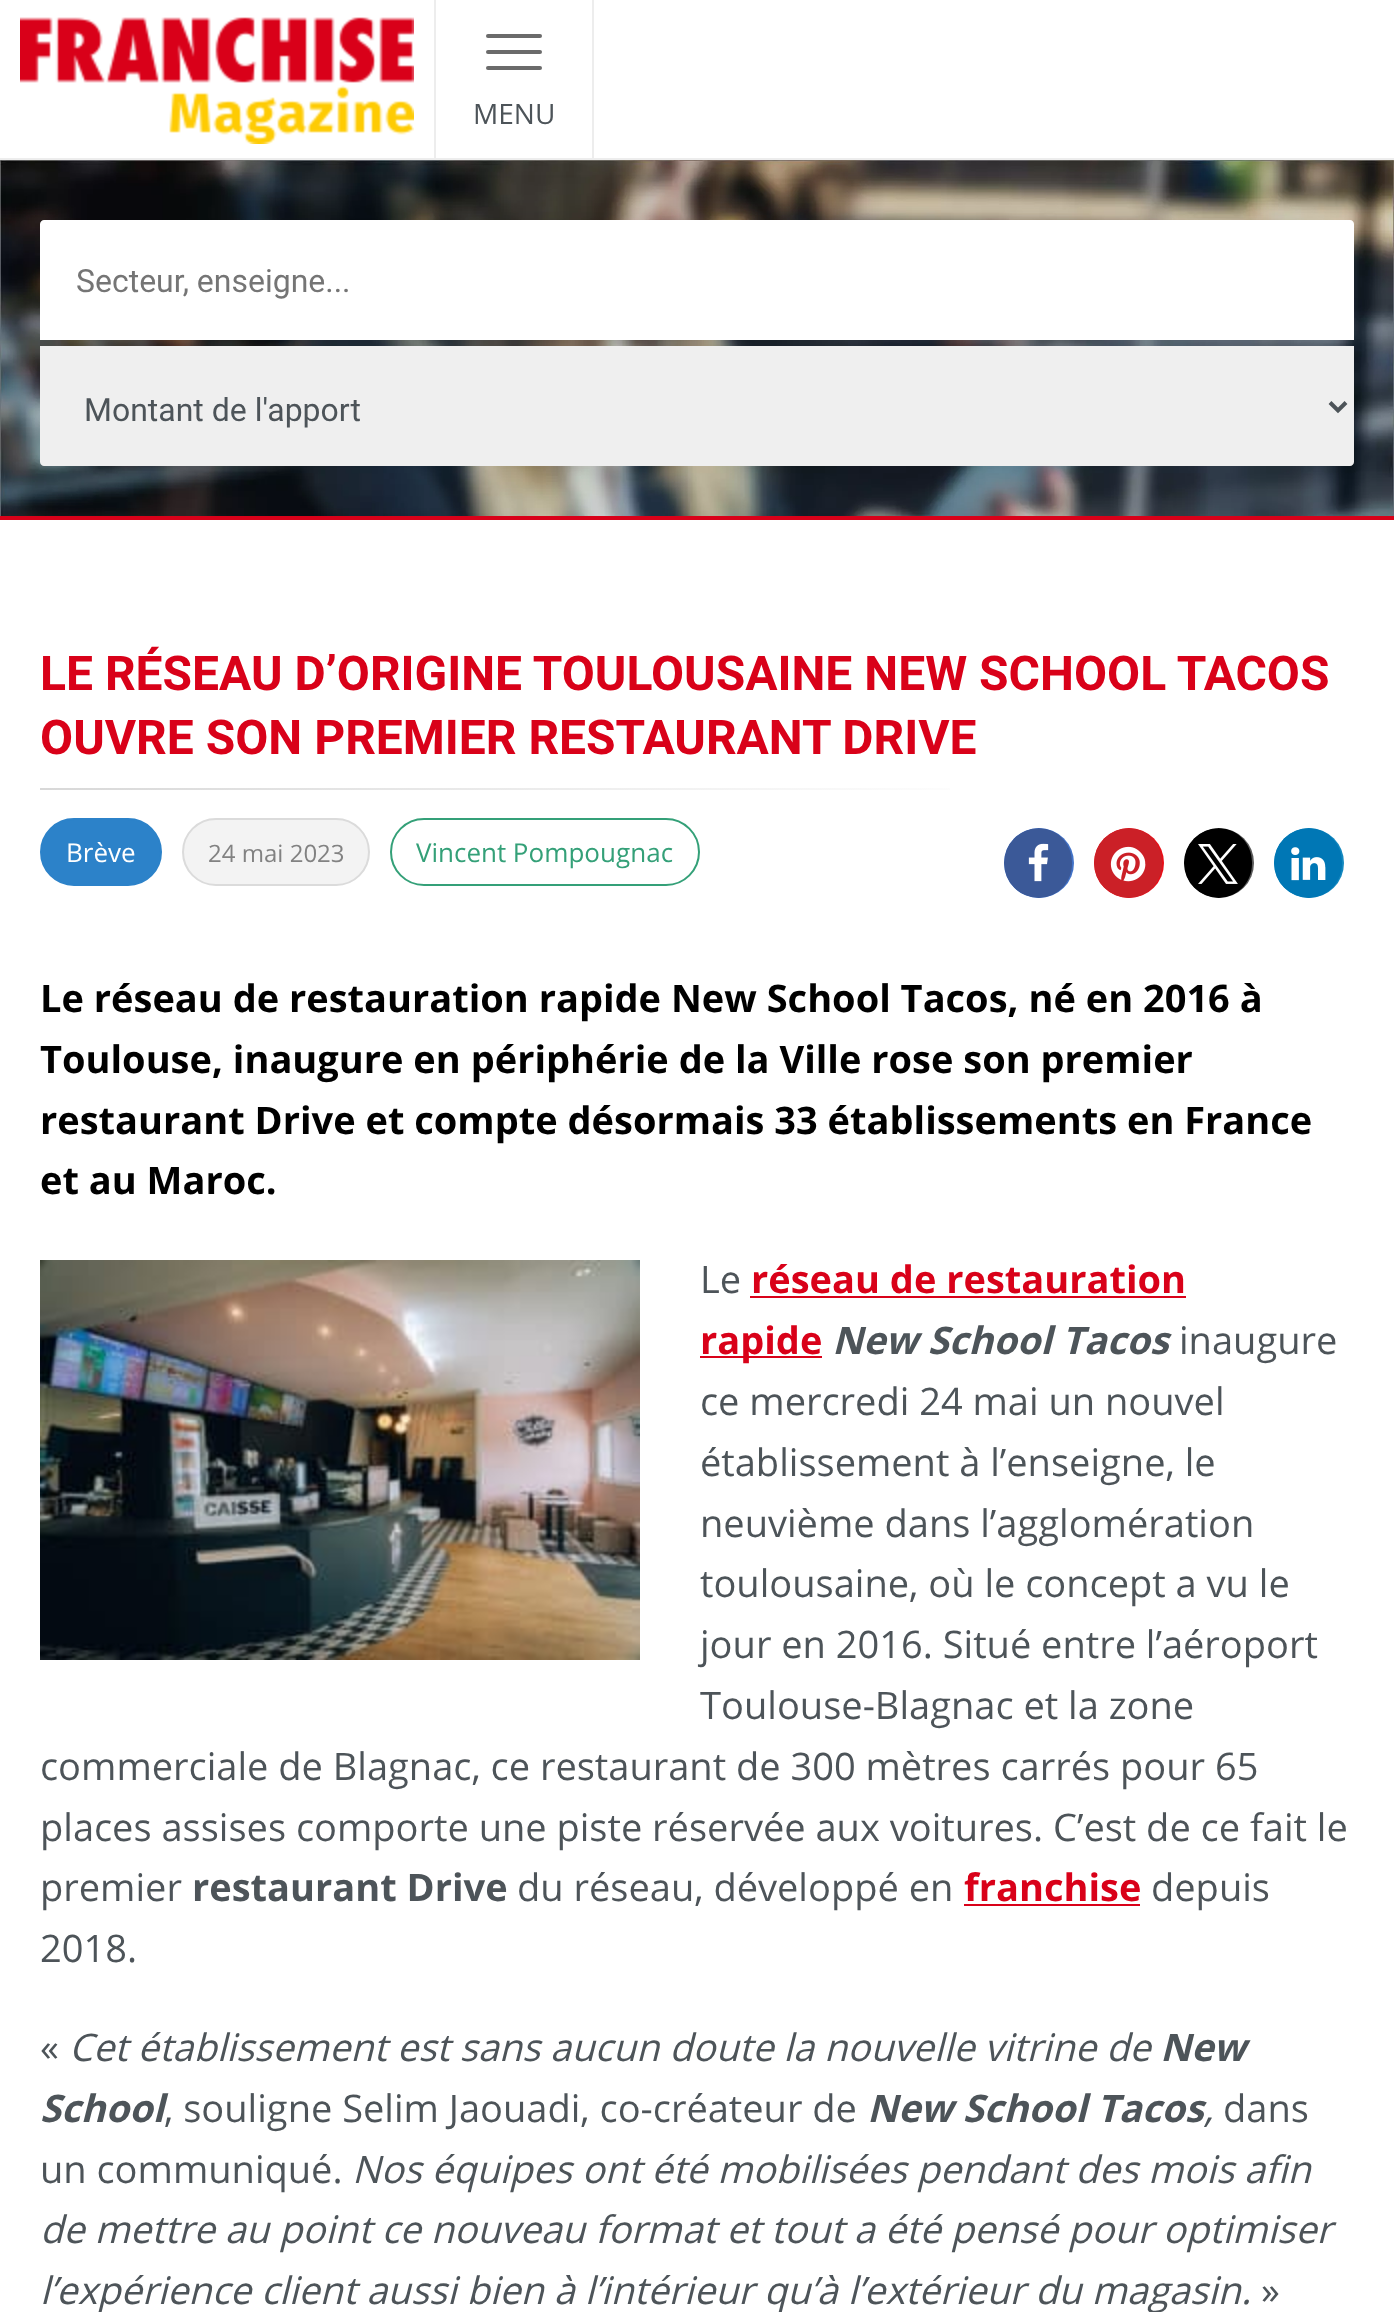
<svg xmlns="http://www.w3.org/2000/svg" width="1394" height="2312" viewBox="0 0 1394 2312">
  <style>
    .t1 { font: 28px Open Sans; fill: #4d5459; }
    .t2 { font: 32px Roboto; fill: #757575; }
    .t3 { font: 32px Roboto; fill: #4d5459; }
    .t4 { font: bold 48px Roboto; fill: #d90119; }
    .t5 { font: 26px Open Sans; fill: #fff; }
    .t6 { font: 24px Open Sans; fill: #828282; }
    .t7 { font: 26px Open Sans; fill: #34a078; }
    .t8 { font: bold 38px Open Sans; fill: #000; }
    .t9 { font: 38px Open Sans; fill: #4d5459; }
    .t10 { font: bold 38px Open Sans; fill: #d90119; }
    .t11 { font: italic bold 38px Open Sans; fill: #4d5459; }
    .t12 { font: bold 38px Open Sans; fill: #4d5459; }
    .t13 { font: italic 38px Open Sans; fill: #4d5459; }
  </style>
  <defs>
    <linearGradient id="g1" gradientUnits="userSpaceOnUse" x1="40" y1="789" x2="1354" y2="789"><stop offset="0" stop-color="#d8d8d8"/><stop offset="0.74" stop-color="#fff"/></linearGradient>
    <clipPath id="clip1"><rect x="1004" y="828" width="70" height="70" rx="35"/></clipPath>
    <clipPath id="clip2"><rect x="1094" y="828" width="70" height="70" rx="35"/></clipPath>
    <clipPath id="clip3"><rect x="1184" y="828" width="70" height="70" rx="35"/></clipPath>
    <clipPath id="clip4"><rect x="1274" y="828" width="70" height="70" rx="35"/></clipPath>
  </defs>
  <rect width="100%" height="100%" fill="#fff"/>
  <image x="0" y="160" width="1394" height="356" href="images/2.png"/>
  <rect x="60" y="240" width="1274" height="80" fill="#00000033" filter="blur(31px)"/>
  <rect x="0" y="158" width="1394" height="2" fill="#ededed"/>
  <image x="20" y="17" width="394" height="127" href="images/1.png"/>
  <rect x="592" y="0" width="2" height="160" fill="#ededed"/>
  <rect x="434" y="0" width="2" height="160" fill="#ededed"/>
  <rect x="486" y="34" width="56" height="4" rx="2" fill="#6b6b6b"/>
  <rect x="486" y="50" width="56" height="4" rx="2" fill="#6b6b6b"/>
  <rect x="486" y="66" width="56" height="4" rx="2" fill="#6b6b6b"/>
  <text x="473" y="124" class="t1">MENU</text>
  <rect x="0" y="516" width="1394" height="4" fill="#d90119"/>
  <path d="M44 220H1350C1352 220 1354 222 1354 224V340H40V224C40 222 42 220 44 220Z" fill="#fff"/>
  <text x="76" y="292" class="t2">Secteur, enseigne...</text>
  <path d="M40 346H1354V462C1354 464 1352 466 1350 466H44C42 466 40 464 40 462Z" fill="#efefef"/>
  <path d="M1330 402.5L1338 410.5L1346 402.5" fill="none" stroke="#4d5459" stroke-width="4"/>
  <text x="84" y="421" class="t3">Montant de l'apport</text>
  <text x="40" y="690" class="t4">LE RÉSEAU D’ORIGINE TOULOUSAINE NEW SCHOOL TACOS</text>
  <text x="40" y="754" class="t4">OUVRE SON PREMIER RESTAURANT DRIVE</text>
  <rect x="40" y="788" width="910" height="2" fill="url(#g1)"/>
  <rect x="41" y="819" width="120" height="66" rx="33" fill="#2c82c9" stroke="#2c82c9" stroke-width="2"/>
  <text x="66" y="862" class="t5">Brève</text>
  <rect x="183" y="819" width="186" height="66" rx="33" fill="#f3f3f3" stroke="#dbdbdb" stroke-width="2"/>
  <text x="208" y="862" class="t6">24 mai 2023</text>
  <rect x="391" y="819" width="308" height="66" rx="33" fill="none" stroke="#34a078" stroke-width="2"/>
  <text x="416" y="862" class="t7">Vincent Pompougnac</text>
  <circle cx="1039" cy="863" r="35" fill="#4273c8"/>
  <g clip-path="url(#clip1)">
    <path d="M1039 828H1038C1057 828 1072 843 1072 862V864C1072 883 1057 898 1038 898H1039C1019.5 898 1004 882.5 1004 863C1004 843.5 1019.5 828 1039 828Z" fill="#3b5998"/>
  </g>
  <image x="1028" y="843" width="21" height="39" href="images/3.png"/>
  <circle cx="1129" cy="863" r="35" fill="#e70f18"/>
  <g clip-path="url(#clip2)">
    <path d="M1129 828H1128C1147 828 1162 843 1162 862V864C1162 883 1147 898 1128 898H1129C1109.5 898 1094 882.5 1094 863C1094 843.5 1109.5 828 1129 828Z" fill="#cb2027"/>
  </g>
  <image x="1110" y="846" width="36" height="36" href="images/4.png"/>
  <circle cx="1219" cy="863" r="35" fill="#595959"/>
  <g clip-path="url(#clip3)">
    <path d="M1219 828H1218C1237 828 1252 843 1252 862V864C1252 883 1237 898 1218 898H1219C1199.5 898 1184 882.5 1184 863C1184 843.5 1199.5 828 1219 828Z" fill="#000"/>
  </g>
  <image x="1198" y="844" width="40" height="40" href="images/5.png"/>
  <circle cx="1309" cy="863" r="35" fill="#1488bf"/>
  <g clip-path="url(#clip4)">
    <path d="M1309 828H1308C1327 828 1342 843 1342 862V864C1342 883 1327 898 1308 898H1309C1289.5 898 1274 882.5 1274 863C1274 843.5 1289.5 828 1309 828Z" fill="#0077b5"/>
  </g>
  <image x="1291" y="847" width="35" height="34" href="images/6.png"/>
  <text x="40" y="1012" class="t8">Le réseau de restauration rapide New School Tacos, né en 2016 à</text>
  <text x="40" y="1073" class="t8">Toulouse, inaugure en périphérie de la Ville rose son premier</text>
  <text x="40" y="1134" class="t8">restaurant Drive et compte désormais 33 établissements en France</text>
  <text x="40" y="1194" class="t8">et au Maroc.</text>
  <image x="40" y="1260" width="600" height="400" href="images/7.png"/>
  <text x="700" y="1293" class="t9">Le</text>
  <text x="751" y="1293" class="t10">réseau de restauration</text>
  <rect x="750" y="1296" width="436" height="2" fill="#d90119"/>
  <rect x="700" y="1356" width="122" height="2" fill="#d90119"/>
  <text x="700" y="1354" class="t10">rapide</text>
  <text x="832" y="1354" class="t11">New School Tacos</text>
  <text x="1179" y="1354" class="t9">inaugure</text>
  <text x="700" y="1415" class="t9">ce mercredi 24 mai un nouvel</text>
  <text x="700" y="1476" class="t9">établissement à l’enseigne, le</text>
  <text x="700" y="1537" class="t9">neuvième dans l’agglomération</text>
  <text x="700" y="1597" class="t9">toulousaine, où le concept a vu le</text>
  <text x="700" y="1658" class="t9">jour en 2016. Situé entre l’aéroport</text>
  <text x="700" y="1719" class="t9">Toulouse-Blagnac et la zone</text>
  <text x="40" y="1780" class="t9">commerciale de Blagnac, ce restaurant de 300 mètres carrés pour 65</text>
  <text x="40" y="1841" class="t9">places assises comporte une piste réservée aux voitures. C’est de ce fait le</text>
  <text x="40" y="1901" class="t9">premier</text>
  <text x="192" y="1901" class="t12">restaurant Drive</text>
  <text x="517" y="1901" class="t9">du réseau, développé en</text>
  <text x="964" y="1901" class="t10">franchise</text>
  <rect x="964" y="1904" width="176" height="2" fill="#d90119"/>
  <text x="1151" y="1901" class="t9">depuis</text>
  <text x="40" y="1962" class="t9">2018.</text>
  <text x="40" y="2061" class="t9">«</text>
  <text x="69" y="2061" class="t13">Cet établissement est sans aucun doute la nouvelle vitrine de</text>
  <text x="1160" y="2061" class="t11">New</text>
  <text x="40" y="2122" class="t11">School</text>
  <text x="164" y="2122" class="t9">, souligne Selim Jaouadi, co-créateur de</text>
  <text x="867" y="2122" class="t11">New School Tacos</text>
  <text x="1204" y="2122" class="t13">,</text>
  <text x="1223" y="2122" class="t9">dans</text>
  <text x="40" y="2183" class="t9">un communiqué.</text>
  <text x="352" y="2183" class="t13">Nos équipes ont été mobilisées pendant des mois afin</text>
  <text x="40" y="2243" class="t13">de mettre au point ce nouveau format et tout a été pensé pour optimiser</text>
  <text x="40" y="2304" class="t13">l’expérience client aussi bien à l’intérieur qu’à l’extérieur du magasin.</text>
  <text x="1261" y="2304" class="t9">»</text>
</svg>
